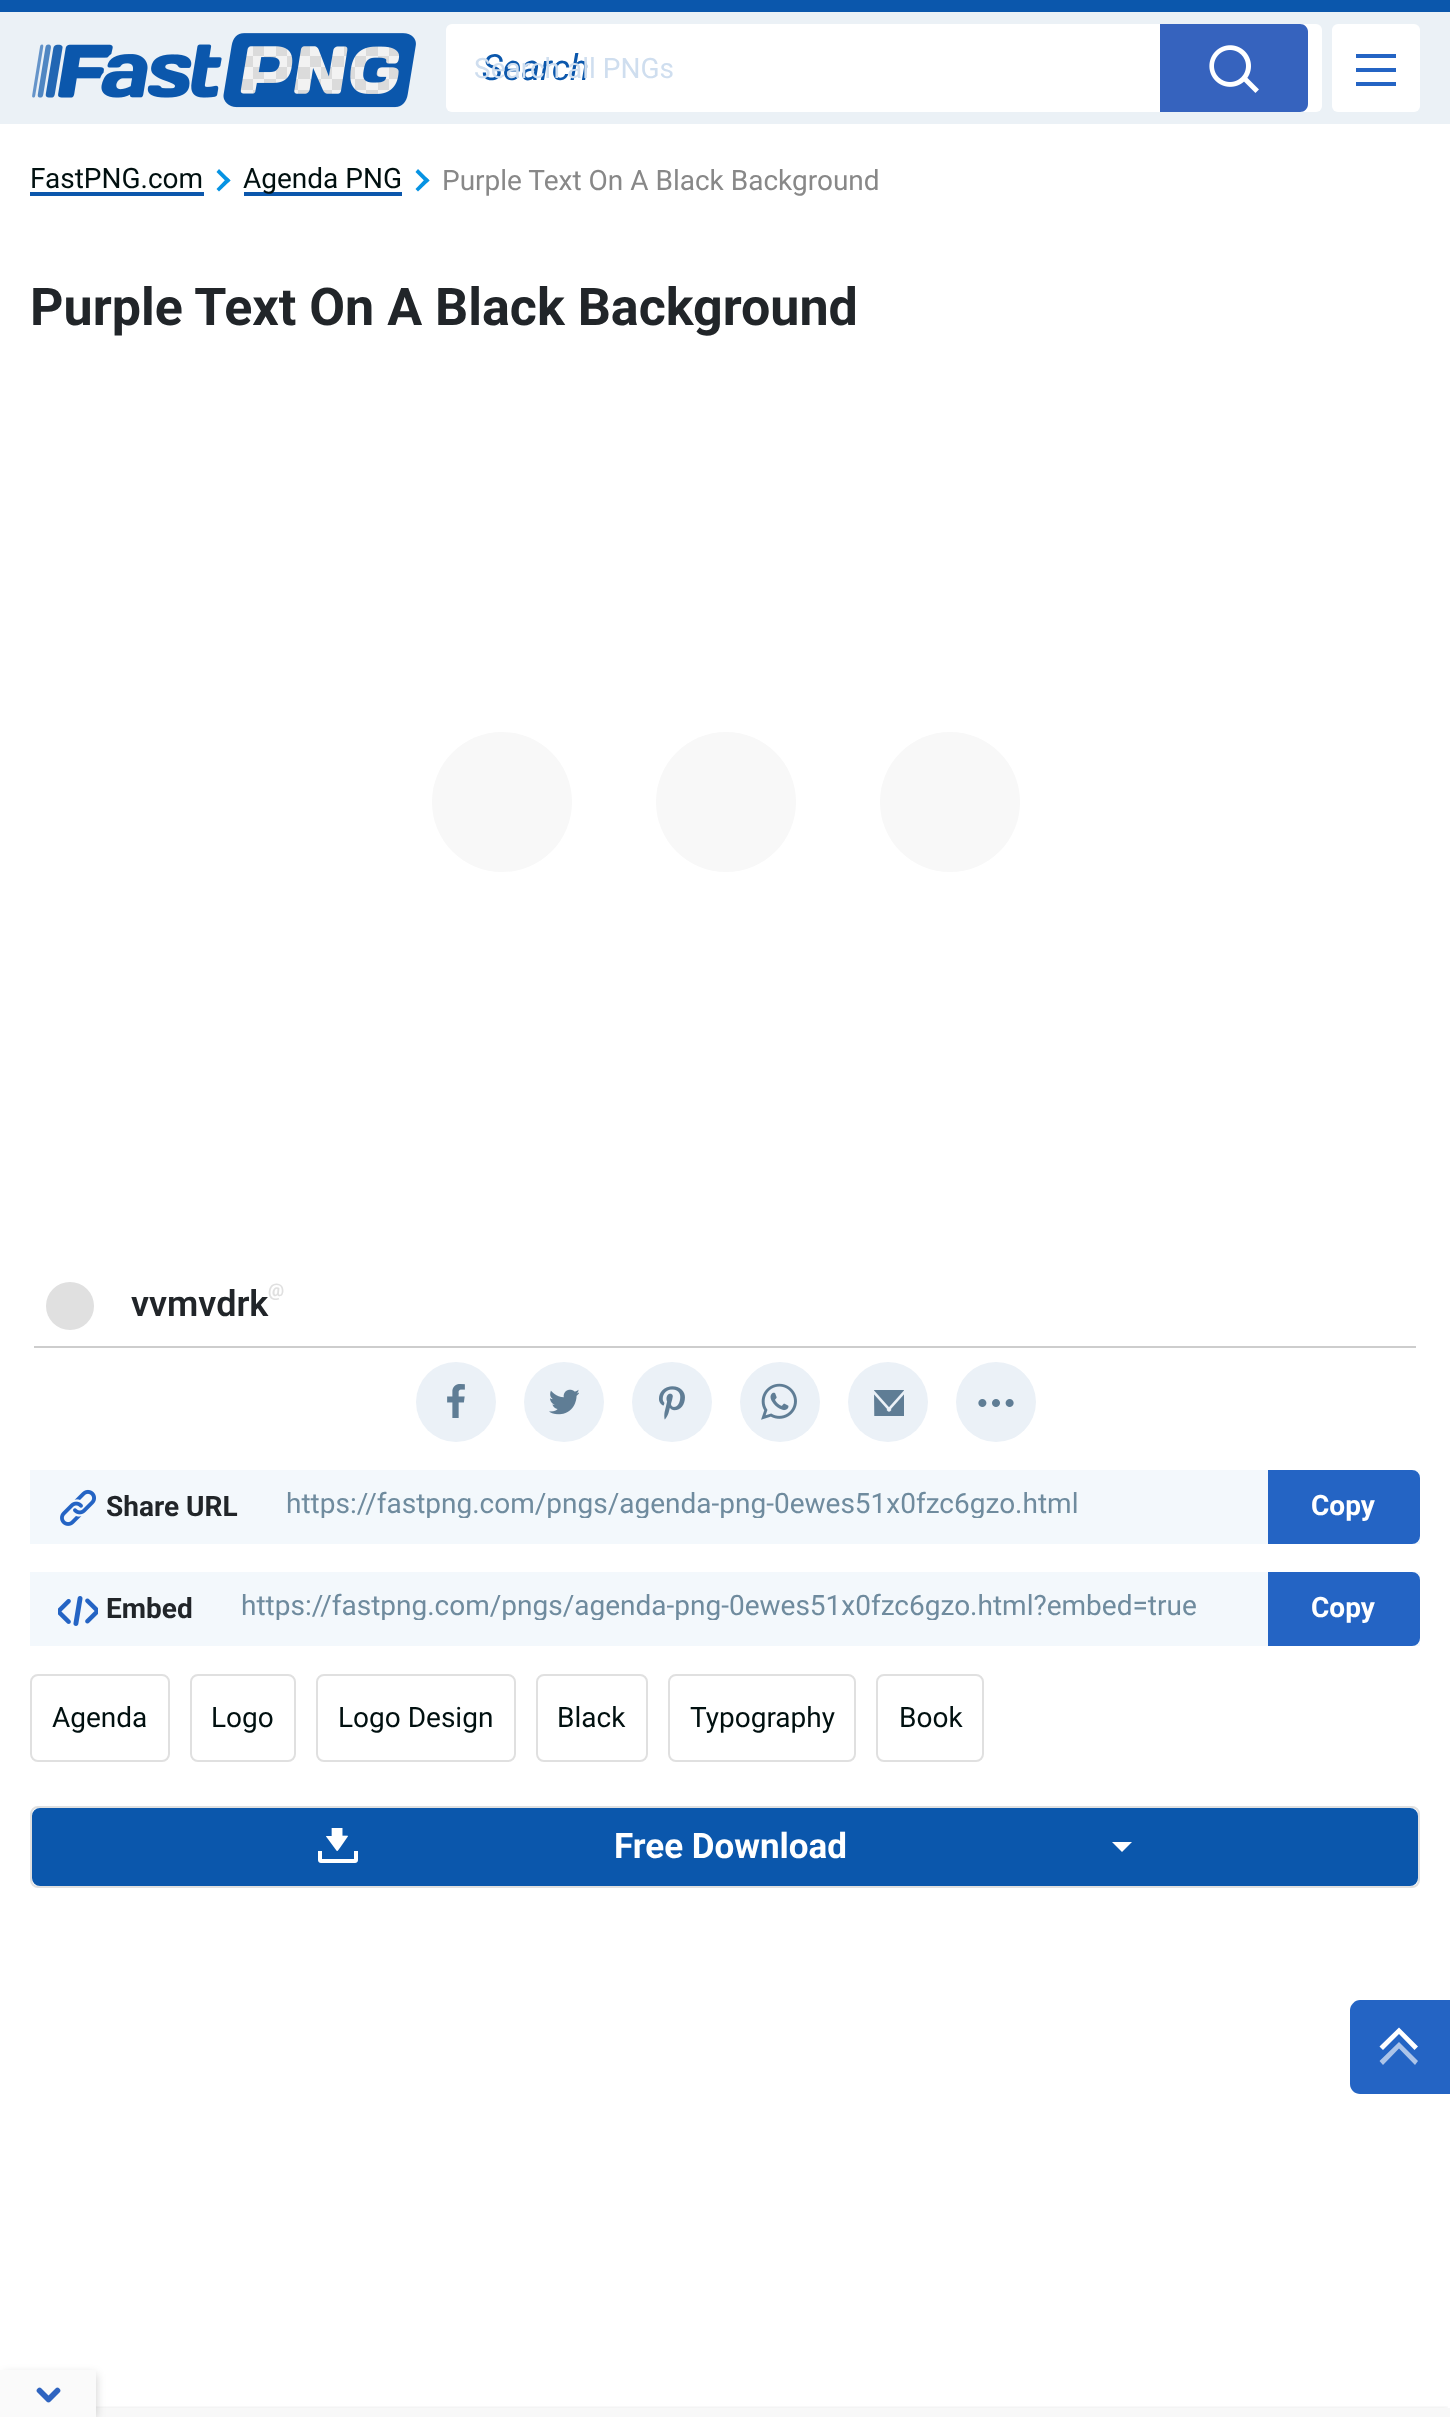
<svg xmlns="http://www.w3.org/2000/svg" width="1450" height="2417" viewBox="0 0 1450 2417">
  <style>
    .t1 { font: italic 36px Roboto; fill: #0b57ac; }
    .t2 { font: 28px Roboto; fill: #cfdeef; }
    .t3 { font: 28px Roboto; fill: #011010; }
    .t4 { font: 28px Roboto; fill: #888; }
    .t5 { font: bold 52px Roboto; fill: #212529; }
    .t6 { font: 600 36px Roboto; fill: #212529; }
    .t7 { font: bold 18px Roboto; fill: #e0e0e0; }
    .t8 { font: bold 28px Roboto; fill: #212529; }
    .t9 { font: 28px Roboto; fill: #6f8b9e; }
    .t10 { font: bold 28px Roboto; fill: #fff; }
    .t11 { font: bold 35px Roboto; fill: #fff; }
  </style>
  <defs>
    <clipPath id="clip1"><rect x="286" y="1486" width="960" height="32"/></clipPath>
    <clipPath id="clip2"><rect x="242" y="1588" width="1004" height="32"/></clipPath>
    <clipPath id="clip3"><rect x="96" y="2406" width="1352" height="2"/></clipPath>
  </defs>
  <rect width="100%" height="100%" fill="#fff"/>
  <rect x="0" y="12" width="1450" height="112" fill="#ebf1f6"/>
  <rect x="0" y="0" width="1450" height="12" fill="#0b57ac"/>
  <image x="32" y="33" width="384" height="75" href="images/1.png"/>
  <rect x="446" y="24" width="876" height="88" rx="6" fill="#fff"/>
  <text x="482" y="80" class="t1">Search</text>
  <path d="M1160 24H1300C1304.5 24 1308 27.5 1308 32V104C1308 108.5 1304.5 112 1300 112H1160Z" fill="#3663be"/>
  <image x="1209" y="45" width="50" height="48" href="images/2.png"/>
  <text x="474" y="78" class="t2">Search all PNGs</text>
  <rect x="1332" y="24" width="88" height="88" rx="6" fill="#fff"/>
  <path d="M1356 72H1396V68H1356ZM1356 86H1396V82H1356ZM1356 54V58H1396V54Z" fill="#2464c4" fill-rule="evenodd"/>
  <rect x="30" y="192" width="174" height="4" fill="#0b57ac"/>
  <text x="30" y="188" class="t3">FastPNG.com</text>
  <path d="M219 169L230.5 180.5L227.5 183L216.5 172Z" fill="#0693e3"/>
  <path d="M227.5 177.5L230.5 180.5L219 191.5L216.5 189Z" fill="#0693e3"/>
  <rect x="244" y="192" width="158" height="4" fill="#0b57ac"/>
  <text x="243" y="188" class="t3">Agenda PNG</text>
  <path d="M418 169L429.5 180.5L426.5 183L415.5 172Z" fill="#0693e3"/>
  <path d="M426.5 177.5L429.5 180.5L418 191.5L415.5 189Z" fill="#0693e3"/>
  <text x="442" y="190" class="t4">Purple Text On A Black Background</text>
  <text x="30" y="325" class="t5">Purple Text On A Black Background</text>
  <circle cx="502" cy="802" r="70" fill="#f8f8f8"/>
  <circle cx="726" cy="802" r="70" fill="#f8f8f8"/>
  <circle cx="950" cy="802" r="70" fill="#f8f8f8"/>
  <circle cx="70" cy="1306" r="24" fill="#e0e0e0"/>
  <text x="131" y="1316" class="t6">vvmvdrk</text>
  <text x="268" y="1296" class="t7">@</text>
  <rect x="34" y="1346" width="1382" height="2" fill="#cdcdcd"/>
  <circle cx="456" cy="1402" r="40" fill="#ebf1f7"/>
  <image x="447" y="1384" width="18" height="34" href="images/3.png"/>
  <circle cx="564" cy="1402" r="40" fill="#ebf1f7"/>
  <image x="549" y="1389" width="30" height="26" href="images/4.png"/>
  <circle cx="672" cy="1402" r="40" fill="#ebf1f7"/>
  <image x="659" y="1386" width="26" height="34" href="images/5.png"/>
  <circle cx="780" cy="1402" r="40" fill="#ebf1f7"/>
  <image x="761" y="1383" width="36" height="37" href="images/6.png"/>
  <circle cx="888" cy="1402" r="40" fill="#ebf1f7"/>
  <image x="874" y="1390" width="30" height="26" href="images/7.png"/>
  <circle cx="996" cy="1402" r="40" fill="#ebf1f7"/>
  <image x="978" y="1399" width="36" height="8" href="images/8.png"/>
  <rect x="30" y="1470" width="1390" height="74" fill="#f3f8fc"/>
  <image x="60" y="1489" width="36" height="37" href="images/9.png"/>
  <text x="106" y="1516" class="t8">Share URL</text>
  <g clip-path="url(#clip1)">
    <text x="286" y="1513" class="t9">https://fastpng.com/pngs/agenda-png-0ewes51x0fzc6gzo.html</text>
  </g>
  <path d="M1269 1471H1412C1416 1471 1419 1474 1419 1478V1536C1419 1540 1416 1543 1412 1543H1269Z" fill="#2464c4" stroke="#2464c4" stroke-width="2"/>
  <text x="1311" y="1515" class="t10">Copy</text>
  <rect x="30" y="1572" width="1390" height="74" fill="#f3f8fc"/>
  <image x="58" y="1596" width="40" height="30" href="images/10.png"/>
  <text x="106" y="1618" class="t8">Embed</text>
  <g clip-path="url(#clip2)">
    <text x="241" y="1615" class="t9">https://fastpng.com/pngs/agenda-png-0ewes51x0fzc6gzo.html?embed=true</text>
  </g>
  <path d="M1269 1573H1412C1416 1573 1419 1576 1419 1580V1638C1419 1642 1416 1645 1412 1645H1269Z" fill="#2464c4" stroke="#2464c4" stroke-width="2"/>
  <text x="1311" y="1617" class="t10">Copy</text>
  <rect x="31" y="1675" width="138" height="86" rx="7" fill="none" stroke="#e0e0e0" stroke-width="2"/>
  <text x="52" y="1727" class="t3">Agenda</text>
  <rect x="191" y="1675" width="104" height="86" rx="7" fill="none" stroke="#e0e0e0" stroke-width="2"/>
  <text x="211" y="1727" class="t3">Logo</text>
  <rect x="317" y="1675" width="198" height="86" rx="7" fill="none" stroke="#e0e0e0" stroke-width="2"/>
  <text x="338" y="1727" class="t3">Logo Design</text>
  <rect x="537" y="1675" width="110" height="86" rx="7" fill="none" stroke="#e0e0e0" stroke-width="2"/>
  <text x="557" y="1727" class="t3">Black</text>
  <rect x="669" y="1675" width="186" height="86" rx="7" fill="none" stroke="#e0e0e0" stroke-width="2"/>
  <text x="690" y="1727" class="t3">Typography</text>
  <rect x="877" y="1675" width="106" height="86" rx="7" fill="none" stroke="#e0e0e0" stroke-width="2"/>
  <text x="899" y="1727" class="t3">Book</text>
  <rect x="31" y="1807" width="1388" height="80" rx="7" fill="none" stroke="#e0e0e0" stroke-width="2"/>
  <rect x="33" y="1809" width="1384" height="76" rx="7" fill="#0b57ac" stroke="#0b57ac" stroke-width="2"/>
  <image x="318" y="1828" width="40" height="35" href="images/11.png"/>
  <text x="614" y="1858" class="t11">Free Download</text>
  <path d="M1112 1842H1132L1122 1852Z" fill="#fff"/>
  <path d="M1450 2094H1360C1355 2094 1350 2090 1350 2084V2010C1350 2005 1355 2000 1360 2000H1450Z" fill="#2464c4" fill-rule="evenodd"/>
  <path d="M1399 2034L1383 2050L1379.5 2046.5L1399 2027.5L1418 2046.5L1414.5 2050Z" fill="#fff" fill-rule="evenodd"/>
  <path d="M1399 2048.5L1383 2065L1379.5 2061L1399 2042L1418 2061L1415 2065Z" fill="#acc4e9" fill-rule="evenodd"/>
  <rect x="96" y="2408" width="1354" height="9" fill="#f8f8f8"/>
  <g clip-path="url(#clip3)">
    <rect x="2" y="2408" width="1446" height="6" fill="#0000001a" filter="blur(2px)"/>
  </g>
  <rect x="4" y="2374" width="92" height="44" fill="#00000033" filter="blur(5px)"/>
  <rect x="0" y="2370" width="96" height="47" fill="#fafafa"/>
  <image x="36" y="2387" width="25" height="16" href="images/12.png"/>
</svg>
